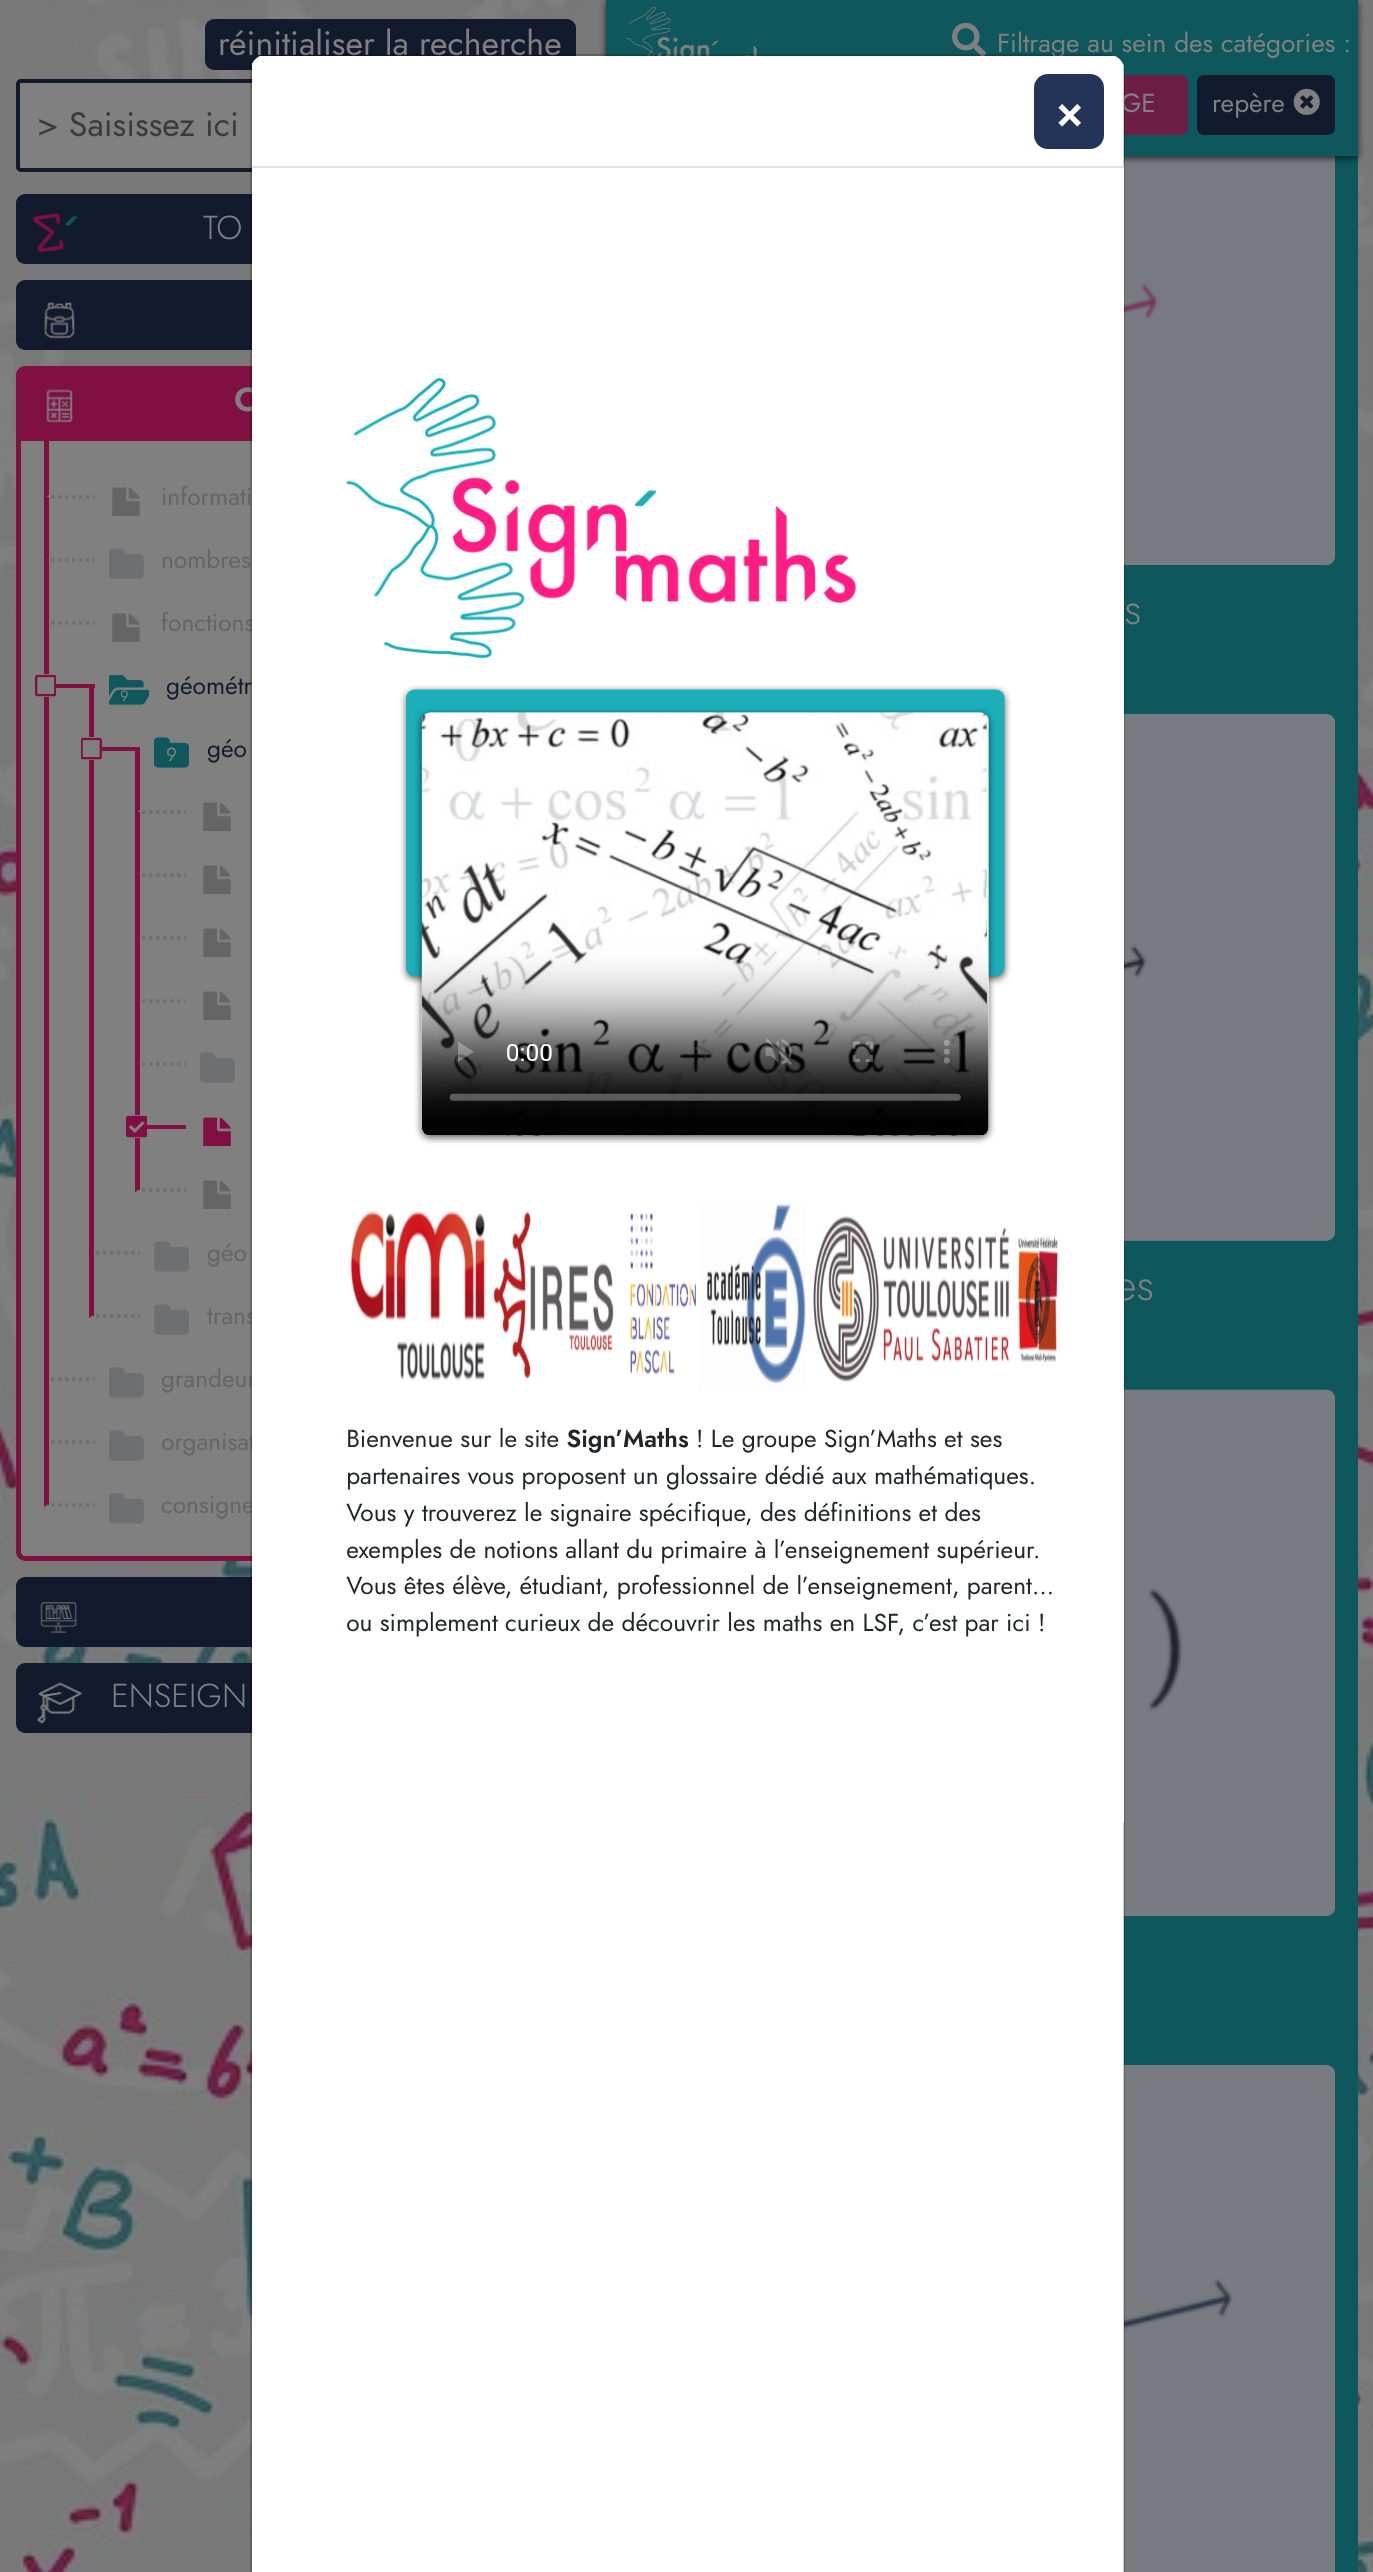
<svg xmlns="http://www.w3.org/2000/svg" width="1373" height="2572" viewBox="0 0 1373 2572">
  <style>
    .t1 { font: 33.9px Jost; fill: #808080; }
    .t2 { font: 33.9px Jost; fill: #3b3b3b; }
    .t3 { font: 300 33.25px Jost; fill: #808080; }
    .t4 { font: 600 33.25px Jost; letter-spacing: 1px; fill: #808080; }
    .t5 { font: 24.5px Jost; fill: #656565; }
    .t6 { font: 24.5px Jost; fill: #121b2d; }
    .t7 { font: 15px Jost; letter-spacing: 3px; fill: #808080; }
    .t8 { font: 19px Jost; fill: #808080; }
    .t9 { font: 26.25px Jost; fill: #808080; }
    .t10 { font: 300 44px Jost; fill: #808080; }
    .t11 { font: 600 46px Jost; fill: #fff; }
  </style>
  <defs>
    <clipPath id="clip1"><rect x="250" y="54" width="875" height="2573" rx="18"/></clipPath>
  </defs>
  <rect width="100%" height="100%" fill="#fff"/>
  <image x="0" y="0" width="1373" height="2572" href="images/1.png"/>
  <rect x="205" y="19" width="371" height="51" rx="9" fill="#121b2d"/>
  <text x="218" y="55" class="t1">réinitialiser la recherche</text>
  <rect x="18" y="81" width="556" height="89" rx="3" fill="#808080" stroke="#121b2d" stroke-width="4"/>
  <text x="37" y="136" class="t2">&gt; Saisissez ici</text>
  <rect x="16" y="194" width="560" height="70" rx="9" fill="#121a2d"/>
  <image x="33" y="212" width="45" height="41" href="images/2.png"/>
  <text x="203" y="239" class="t3">TO</text>
  <rect x="16" y="280" width="560" height="70" rx="9" fill="#121a2d"/>
  <image x="44" y="302" width="31" height="37" href="images/3.png"/>
  <path d="M25 366H567C572 366 576 370 576 375V436H16V375C16 370 20 366 25 366Z" fill="#800f42"/>
  <image x="46" y="388" width="27" height="35" href="images/4.png"/>
  <text x="234" y="411" class="t4">C</text>
  <path d="M18.5 438.5H573.5V1552C573.5 1555.5 570.5 1558.5 567 1558.5H25C21.5 1558.5 18.5 1555.5 18.5 1552Z" fill="#808080" stroke="#800f42" stroke-width="5"/>
  <path d="M44 497H94.5" fill="none" stroke="#6e6f72" stroke-width="3.5" stroke-dasharray="3.5 3.5"/>
  <path d="M44 499V436H49V495Z" fill="#800f42"/>
  <image x="112" y="487" width="28" height="29" href="images/5.png"/>
  <text x="161" y="505" class="t5">informati</text>
  <rect x="44" y="497" width="5" height="63" fill="#800f42"/>
  <path d="M44 560H94.5" fill="none" stroke="#6e6f72" stroke-width="3.5" stroke-dasharray="3.5 3.5"/>
  <path d="M44 562V499H49V558Z" fill="#800f42"/>
  <image x="109" y="548" width="35" height="31" href="images/6.png"/>
  <text x="161" y="568" class="t5">nombres</text>
  <rect x="44" y="560" width="5" height="63" fill="#800f42"/>
  <path d="M44 623H94.5" fill="none" stroke="#6e6f72" stroke-width="3.5" stroke-dasharray="3.5 3.5"/>
  <path d="M44 625V562H49V621Z" fill="#800f42"/>
  <image x="112" y="613" width="28" height="29" href="images/5.png"/>
  <text x="161" y="631" class="t5">fonctions</text>
  <rect x="44" y="623" width="5" height="51" fill="#800f42"/>
  <image x="35" y="674" width="21" height="23" href="images/7.png"/>
  <rect x="56" y="684" width="39" height="4" fill="#800f42"/>
  <image x="109" y="675" width="40" height="30" href="images/8.png"/>
  <text x="166" y="694" class="t6">géométr</text>
  <text x="120" y="701" class="t7">9</text>
  <rect x="44" y="697" width="5" height="682" fill="#800f42"/>
  <rect x="102" y="747" width="38" height="4" fill="#800f42"/>
  <rect x="89" y="688" width="5" height="49" fill="#800f42"/>
  <image x="81" y="737" width="21" height="23" href="images/9.png"/>
  <image x="154" y="737" width="35" height="31" href="images/10.png"/>
  <text x="207" y="757" class="t6">géo</text>
  <text x="166" y="761" class="t8">9</text>
  <rect x="89" y="760" width="5" height="493" fill="#800f42"/>
  <path d="M135 812H185.5" fill="none" stroke="#6e6f72" stroke-width="3.5" stroke-dasharray="3.5 3.5"/>
  <path d="M135 814V751H140V810Z" fill="#800f42"/>
  <image x="203" y="802" width="28" height="29" href="images/5.png"/>
  <rect x="135" y="812" width="5" height="63" fill="#800f42"/>
  <path d="M135 875H185.5" fill="none" stroke="#6e6f72" stroke-width="3.5" stroke-dasharray="3.5 3.5"/>
  <path d="M135 877V814H140V873Z" fill="#800f42"/>
  <image x="203" y="865" width="28" height="29" href="images/5.png"/>
  <rect x="135" y="875" width="5" height="63" fill="#800f42"/>
  <path d="M135 938H185.5" fill="none" stroke="#6e6f72" stroke-width="3.5" stroke-dasharray="3.5 3.5"/>
  <path d="M135 940V877H140V936Z" fill="#800f42"/>
  <image x="203" y="928" width="28" height="29" href="images/5.png"/>
  <rect x="135" y="938" width="5" height="63" fill="#800f42"/>
  <path d="M135 1001H185.5" fill="none" stroke="#6e6f72" stroke-width="3.5" stroke-dasharray="3.5 3.5"/>
  <path d="M135 1003V940H140V999Z" fill="#800f42"/>
  <image x="203" y="991" width="28" height="29" href="images/5.png"/>
  <rect x="135" y="1001" width="5" height="63" fill="#800f42"/>
  <path d="M135 1064H185.5" fill="none" stroke="#6e6f72" stroke-width="3.5" stroke-dasharray="3.5 3.5"/>
  <path d="M135 1066V1003H140V1062Z" fill="#800f42"/>
  <image x="200" y="1052" width="35" height="31" href="images/6.png"/>
  <rect x="135" y="1064" width="5" height="51" fill="#800f42"/>
  <rect x="138" y="1188" width="2" height="2" fill="#800f42"/>
  <path d="M135 1190H185.5" fill="none" stroke="#6e6f72" stroke-width="3.5" stroke-dasharray="3.5 3.5"/>
  <path d="M135 1192V1129H140V1188Z" fill="#800f42"/>
  <rect x="135" y="1129" width="5" height="9" fill="#808080"/>
  <image x="126" y="1115" width="21" height="23" href="images/11.png"/>
  <rect x="147" y="1125" width="39" height="4" fill="#800f42"/>
  <image x="203" y="1117" width="28" height="29" href="images/12.png"/>
  <image x="203" y="1180" width="28" height="29" href="images/5.png"/>
  <path d="M89 1253H140" fill="none" stroke="#6e6f72" stroke-width="3.5" stroke-dasharray="3.5 3.5"/>
  <path d="M89 1255V1192H94V1251Z" fill="#800f42"/>
  <image x="154" y="1241" width="35" height="31" href="images/13.png"/>
  <text x="207" y="1261" class="t5">géo</text>
  <rect x="89" y="1253" width="5" height="63" fill="#800f42"/>
  <path d="M89 1316H140" fill="none" stroke="#6e6f72" stroke-width="3.5" stroke-dasharray="3.5 3.5"/>
  <path d="M89 1318V1255H94V1314Z" fill="#800f42"/>
  <image x="154" y="1304" width="35" height="31" href="images/13.png"/>
  <text x="207" y="1324" class="t5">trans</text>
  <path d="M44 1379H94.5" fill="none" stroke="#6e6f72" stroke-width="3.5" stroke-dasharray="3.5 3.5"/>
  <path d="M44 1381V1318H49V1377Z" fill="#800f42"/>
  <image x="109" y="1367" width="35" height="31" href="images/6.png"/>
  <text x="161" y="1387" class="t5">grandeur</text>
  <rect x="44" y="1379" width="5" height="63" fill="#800f42"/>
  <path d="M44 1442H94.5" fill="none" stroke="#6e6f72" stroke-width="3.5" stroke-dasharray="3.5 3.5"/>
  <path d="M44 1444V1381H49V1440Z" fill="#800f42"/>
  <image x="109" y="1430" width="35" height="31" href="images/6.png"/>
  <text x="161" y="1450" class="t5">organisat</text>
  <rect x="44" y="1442" width="5" height="63" fill="#800f42"/>
  <path d="M44 1505H94.5" fill="none" stroke="#6e6f72" stroke-width="3.5" stroke-dasharray="3.5 3.5"/>
  <path d="M44 1507V1444H49V1503Z" fill="#800f42"/>
  <image x="109" y="1493" width="35" height="31" href="images/6.png"/>
  <text x="161" y="1513" class="t5">consigne</text>
  <rect x="16" y="1577" width="560" height="70" rx="9" fill="#121a2d"/>
  <image x="40" y="1601" width="38" height="32" href="images/14.png"/>
  <rect x="16" y="1663" width="560" height="70" rx="9" fill="#121a2d"/>
  <image x="36" y="1682" width="47" height="42" href="images/15.png"/>
  <text x="111" y="1707" class="t3">ENSEIGN</text>
  <rect x="1124" y="156" width="234" height="2416" fill="#0e585d"/>
  <rect x="628" y="39" width="707" height="526" rx="9" fill="#66737f"/>
  <image x="1124" y="156" width="211" height="409" href="images/19.png"/>
  <rect x="606" y="2" width="752" height="156" fill="#000000b3" filter="blur(3.5px)"/>
  <rect x="606" y="0" width="752" height="156" fill="#0e585d"/>
  <image x="625" y="7" width="132" height="49" href="images/16.png"/>
  <image x="952" y="22" width="34" height="34" href="images/17.png"/>
  <text x="997" y="52" class="t9">Filtrage au sein des catégories :</text>
  <rect x="987" y="75" width="201" height="60" rx="7" fill="#6c1f42"/>
  <text x="1121" y="112" class="t9">GE</text>
  <rect x="1197" y="75" width="138" height="60" rx="7" fill="#121b2d"/>
  <text x="1212" y="112" class="t9">repère</text>
  <image x="1293" y="88" width="27" height="27" href="images/18.png"/>
  <text x="1124" y="624" class="t10">s</text>
  <rect x="628" y="714" width="707" height="527" rx="9" fill="#66737f"/>
  <image x="1124" y="714" width="211" height="527" href="images/20.png"/>
  <text x="1114" y="1300" class="t10">es</text>
  <rect x="628" y="1390" width="707" height="526" rx="9" fill="#66737f"/>
  <image x="1124" y="1389" width="211" height="527" href="images/21.png"/>
  <rect x="628" y="2065" width="707" height="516" rx="9" fill="#66737f"/>
  <image x="1124" y="2065" width="211" height="507" href="images/22.png"/>
  <g clip-path="url(#clip1)">
    <path d="M259 56H1117C1121 56 1124 59 1124 63V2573H252V63C252 59 255 56 259 56Z" fill="#fff"/>
  </g>
  <path d="M250 72V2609C250 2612 251 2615 252 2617V64C251 66 250 69 250 72ZM268 54C265 54 262 55 260 56H1115C1113 55 1110 54 1107 54ZM1125 72C1125 69 1124 66 1123 64V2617C1124 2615 1125 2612 1125 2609ZM1107 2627C1110 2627 1113 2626 1115 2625H260C262 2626 265 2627 268 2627Z" fill="#00000033" fill-rule="evenodd"/>
  <rect x="252" y="166" width="872" height="2" fill="#dee2e6"/>
  <rect x="1034" y="74" width="70" height="75" rx="14" fill="#243459"/>
  <text x="1056" y="127" class="t11">×</text>
  <image x="346" y="168" width="778" height="1654" href="images/23.png"/>
</svg>
